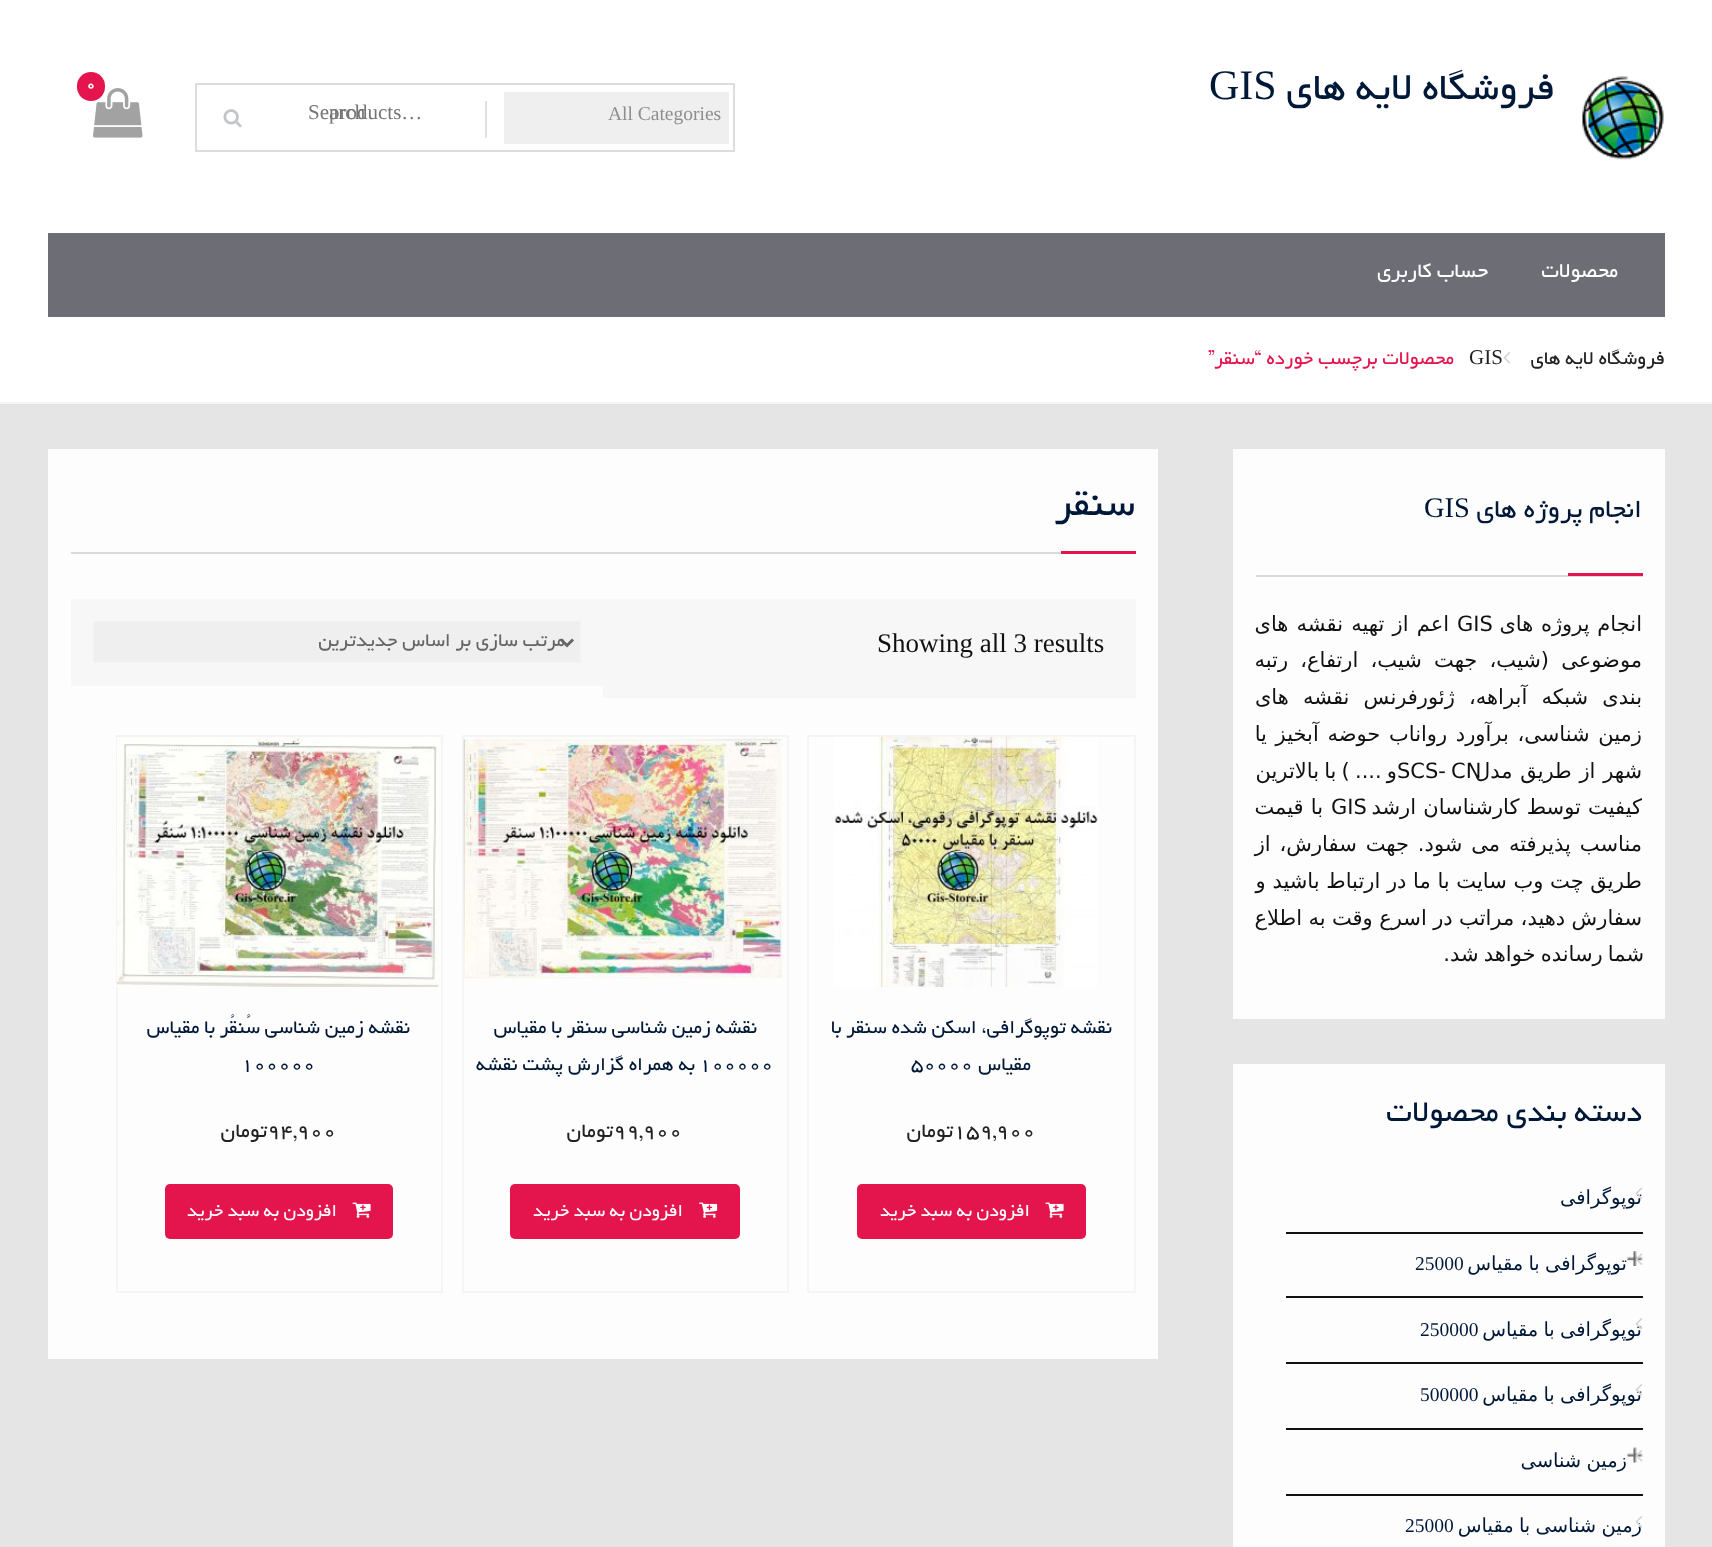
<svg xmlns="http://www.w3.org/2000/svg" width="1712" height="1547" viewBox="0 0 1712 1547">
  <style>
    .t1 { font: 42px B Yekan; direction: rtl; fill: #001837; }
    .t2 { font: 42px Liberation Serif; fill: #001837; }
    .t3 { font: bold 16px B Yekan; fill: #fff; }
    .t4 { font: 19.5px Liberation Serif; fill: #8e8e8e; }
    .t5 { font: 21px Liberation Serif; fill: #757575; }
    .t6 { font: 22.5px B Yekan; direction: rtl; fill: #fff; }
    .t7 { font: 21px B Yekan; direction: rtl; fill: #222; }
    .t8 { font: 21px Liberation Serif; fill: #222; }
    .t9 { font: 21px B Yekan; direction: rtl; fill: #e4144d; }
    .t10 { font: 28.5px B Yekan; direction: rtl; fill: #001837; }
    .t11 { font: 28.5px Liberation Serif; fill: #001837; }
    .t12 { font: 21px DejaVu Sans; direction: rtl; fill: #111; }
    .t13 { font: 21px DejaVu Sans; fill: #111; }
    .t14 { font: 33px B Yekan; direction: rtl; fill: #001837; }
    .t15 { font: 19.5px DejaVu Sans; direction: rtl; fill: #001837; }
    .t16 { font: 19.5px Liberation Serif; fill: #001837; }
    .t17 { font: 27px Liberation Serif; fill: #111; }
    .t18 { font: 21px B Yekan; direction: rtl; fill: #666; }
    .t19 { font: 21px B Yekan; direction: rtl; fill: #001837; }
    .t20 { font: 21px B Yekan; fill: #001837; }
    .t21 { font: 22.5px B Yekan; fill: #222; }
    .t22 { font: 22.5px B Yekan; direction: rtl; fill: #222; }
    .t23 { font: 19.5px B Yekan; direction: rtl; fill: #fff; }
  </style>
  <rect width="100%" height="100%" fill="#e5e5e5"/>
  <rect x="0" y="0" width="1712" height="233" fill="#fff"/>
  <image x="1582" y="76" width="82" height="84" href="images/1.png"/>
  <text x="1555" y="99" class="t1">فروشگاه لایه های</text>
  <text x="1209" y="99" class="t2">GIS</text>
  <image x="93" y="88" width="50" height="50" href="images/2.png"/>
  <rect x="77" y="72" width="28" height="29" rx="14" fill="#e4144d"/>
  <text x="86" y="89" class="t3">0</text>
  <rect x="196" y="84" width="538" height="67" fill="none" stroke="#ddd" stroke-width="2"/>
  <rect x="504" y="92" width="225" height="52" fill="#efefef"/>
  <text x="608" y="120" class="t4">All Categories</text>
  <rect x="485" y="101" width="2" height="37" fill="#e0e0e0"/>
  <text x="308" y="119" class="t5">Search</text>
  <text x="329" y="119" class="t5">products…</text>
  <image x="223" y="109" width="19" height="19" href="images/3.png"/>
  <rect x="0" y="233" width="1712" height="169" fill="#fff"/>
  <rect x="48" y="233" width="1617" height="84" fill="#6d6d75"/>
  <text x="1618" y="277" class="t6">محصولات</text>
  <text x="1488" y="277" class="t6">حساب کاربری</text>
  <rect x="0" y="402" width="1712" height="2" fill="#f5f5f5"/>
  <text x="1665" y="364" class="t7">فروشگاه لایه های</text>
  <image x="1503" y="352" width="8" height="12" href="images/4.png"/>
  <text x="1469" y="364" class="t8">GIS</text>
  <text x="1454" y="364" class="t9">محصولات برچسب خورده</text>
  <text x="1261" y="364" class="t9">“سنقر”</text>
  <rect x="1233" y="449" width="432" height="570" fill="#fdfdfd"/>
  <rect x="1256" y="575" width="387" height="2" fill="#dadada"/>
  <text x="1642" y="517" class="t10">انجام پروژه های</text>
  <text x="1424" y="517" class="t11">GIS</text>
  <rect x="1568" y="573" width="75" height="3" fill="#e4144d"/>
  <text x="1642" y="631" word-spacing="1" class="t12">انجام پروژه های</text>
  <text x="1457" y="631" class="t13">GIS</text>
  <text x="1449" y="631" word-spacing="1.5" class="t12">اعم از تهیه نقشه های</text>
  <text x="1642" y="667" word-spacing="5.5" class="t12">موضوعی (شیب، جهت شیب، ارتفاع، رتبه</text>
  <text x="1642" y="704" word-spacing="7.5" class="t12">بندی شبکه آبراهه، ژئورفرنس نقشه های</text>
  <text x="1642" y="741" word-spacing="2" class="t12">زمین شناسی، برآورد رواناب حوضه آبخیز یا</text>
  <text x="1397" y="778" word-spacing="-1.5" class="t12">و .... ) با بالاترین</text>
  <text x="1397" y="778" word-spacing="-1.5" class="t13">SCS- CN</text>
  <text x="1642" y="778" word-spacing="1" class="t12">شهر از طریق مدل</text>
  <text x="1642" y="814" word-spacing="0.5" class="t12">کیفیت توسط کارشناسان ارشد</text>
  <text x="1331" y="814" class="t13">GIS</text>
  <text x="1323" y="814" word-spacing="0.5" class="t12">با قیمت</text>
  <text x="1642" y="851" word-spacing="2.25" class="t12">مناسب پذیرفته می شود. جهت سفارش، از</text>
  <text x="1642" y="888" class="t12">طریق چت وب سایت با ما در ارتباط باشید و</text>
  <text x="1642" y="925" word-spacing="-0.25" class="t12">سفارش دهید، مراتب در اسرع وقت به اطلاع</text>
  <text x="1644" y="961" word-spacing="-1.5" class="t12">شما رسانده خواهد شد.</text>
  <rect x="1233" y="1064" width="432" height="483" fill="#fdfdfd"/>
  <text x="1642" y="1121" class="t14">دسته بندی محصولات</text>
  <rect x="1286" y="1232" width="357" height="2" fill="#111"/>
  <text x="1642" y="1204" class="t15">توپوگرافی</text>
  <image x="1635" y="1187" width="8" height="12" href="images/5.png"/>
  <rect x="1286" y="1296" width="357" height="2" fill="#111"/>
  <image x="1627" y="1251" width="16" height="15" href="images/6.png"/>
  <text x="1627" y="1270" word-spacing="-1" class="t15">توپوگرافی با مقیاس</text>
  <image x="1635" y="1253" width="8" height="12" href="images/7.png"/>
  <text x="1415" y="1270" class="t16">25000</text>
  <rect x="1286" y="1362" width="357" height="2" fill="#111"/>
  <text x="1642" y="1336" word-spacing="-1" class="t15">توپوگرافی با مقیاس</text>
  <image x="1635" y="1318" width="8" height="12" href="images/8.png"/>
  <text x="1420" y="1336" class="t16">250000</text>
  <rect x="1286" y="1428" width="357" height="2" fill="#111"/>
  <text x="1642" y="1401" word-spacing="-1" class="t15">توپوگرافی با مقیاس</text>
  <image x="1635" y="1384" width="8" height="12" href="images/9.png"/>
  <text x="1420" y="1401" class="t16">500000</text>
  <rect x="1286" y="1494" width="357" height="2" fill="#111"/>
  <image x="1627" y="1447" width="16" height="16" href="images/10.png"/>
  <image x="1635" y="1450" width="8" height="12" href="images/11.png"/>
  <text x="1627" y="1467" word-spacing="-1" class="t15">زمین شناسی</text>
  <text x="1642" y="1532" word-spacing="-1" class="t15">زمین شناسی با مقیاس</text>
  <image x="1635" y="1516" width="8" height="12" href="images/12.png"/>
  <text x="1405" y="1532" class="t16">25000</text>
  <rect x="48" y="449" width="1110" height="910" fill="#fdfdfd"/>
  <rect x="71" y="552" width="990" height="2" fill="#dadada"/>
  <text x="1135" y="515" class="t1">سنقر</text>
  <rect x="1061" y="551" width="75" height="3" fill="#e4144d"/>
  <rect x="603" y="599" width="533" height="99" fill="#f7f7f7"/>
  <text x="877" y="652" class="t17">Showing all 3 results</text>
  <rect x="71" y="599" width="532" height="87" fill="#f7f7f7"/>
  <rect x="94" y="622" width="486" height="40" fill="#efefef" stroke="#f1f1f1" stroke-width="2"/>
  <path d="M561 639.5L567 645.5L573 639.5" fill="none" stroke="#666" stroke-width="3"/>
  <text x="565" y="646" class="t18">مرتب سازی بر اساس جدیدترین</text>
  <rect x="808" y="736" width="327" height="556" fill="none" stroke="#f5f5f5" stroke-width="2"/>
  <image x="834" y="736" width="264" height="251" href="images/13.png"/>
  <text x="1112" y="1033" class="t19">نقشه توپوگرافی، اسکن شده سنقر با</text>
  <text x="1031" y="1070" class="t19">مقیاس</text>
  <text x="911" y="1070" class="t20">50000</text>
  <text x="953" y="1137" class="t21">159,900</text>
  <text x="953" y="1137" class="t22">تومان</text>
  <rect x="857" y="1184" width="229" height="55" rx="5" fill="#e4144d"/>
  <image x="1045" y="1202" width="19" height="16" href="images/14.png"/>
  <text x="1030" y="1216" class="t23">افزودن به سبد خرید</text>
  <rect x="463" y="736" width="325" height="556" fill="none" stroke="#f5f5f5" stroke-width="2"/>
  <image x="463" y="737" width="321" height="242" href="images/15.png"/>
  <text x="757" y="1033" class="t19">نقشه زمین شناسی سنقر با مقیاس</text>
  <text x="699" y="1070" class="t20">100000</text>
  <text x="695" y="1070" class="t19">به همراه گزارش پشت نقشه</text>
  <text x="613" y="1137" class="t21">99,900</text>
  <text x="613" y="1137" class="t22">تومان</text>
  <rect x="510" y="1184" width="230" height="55" rx="5" fill="#e4144d"/>
  <image x="699" y="1202" width="19" height="16" href="images/16.png"/>
  <text x="683" y="1216" class="t23">افزودن به سبد خرید</text>
  <rect x="117" y="736" width="325" height="556" fill="none" stroke="#f5f5f5" stroke-width="2"/>
  <image x="117" y="737" width="322" height="250" href="images/17.png"/>
  <text x="410" y="1033" class="t19">نقشه زمین شناسی سُنقُر با مقیاس</text>
  <text x="241" y="1070" class="t20">100000</text>
  <text x="267" y="1137" class="t21">94,900</text>
  <text x="267" y="1137" class="t22">تومان</text>
  <rect x="165" y="1184" width="228" height="55" rx="5" fill="#e4144d"/>
  <image x="352" y="1202" width="19" height="16" href="images/14.png"/>
  <text x="337" y="1216" class="t23">افزودن به سبد خرید</text>
</svg>
